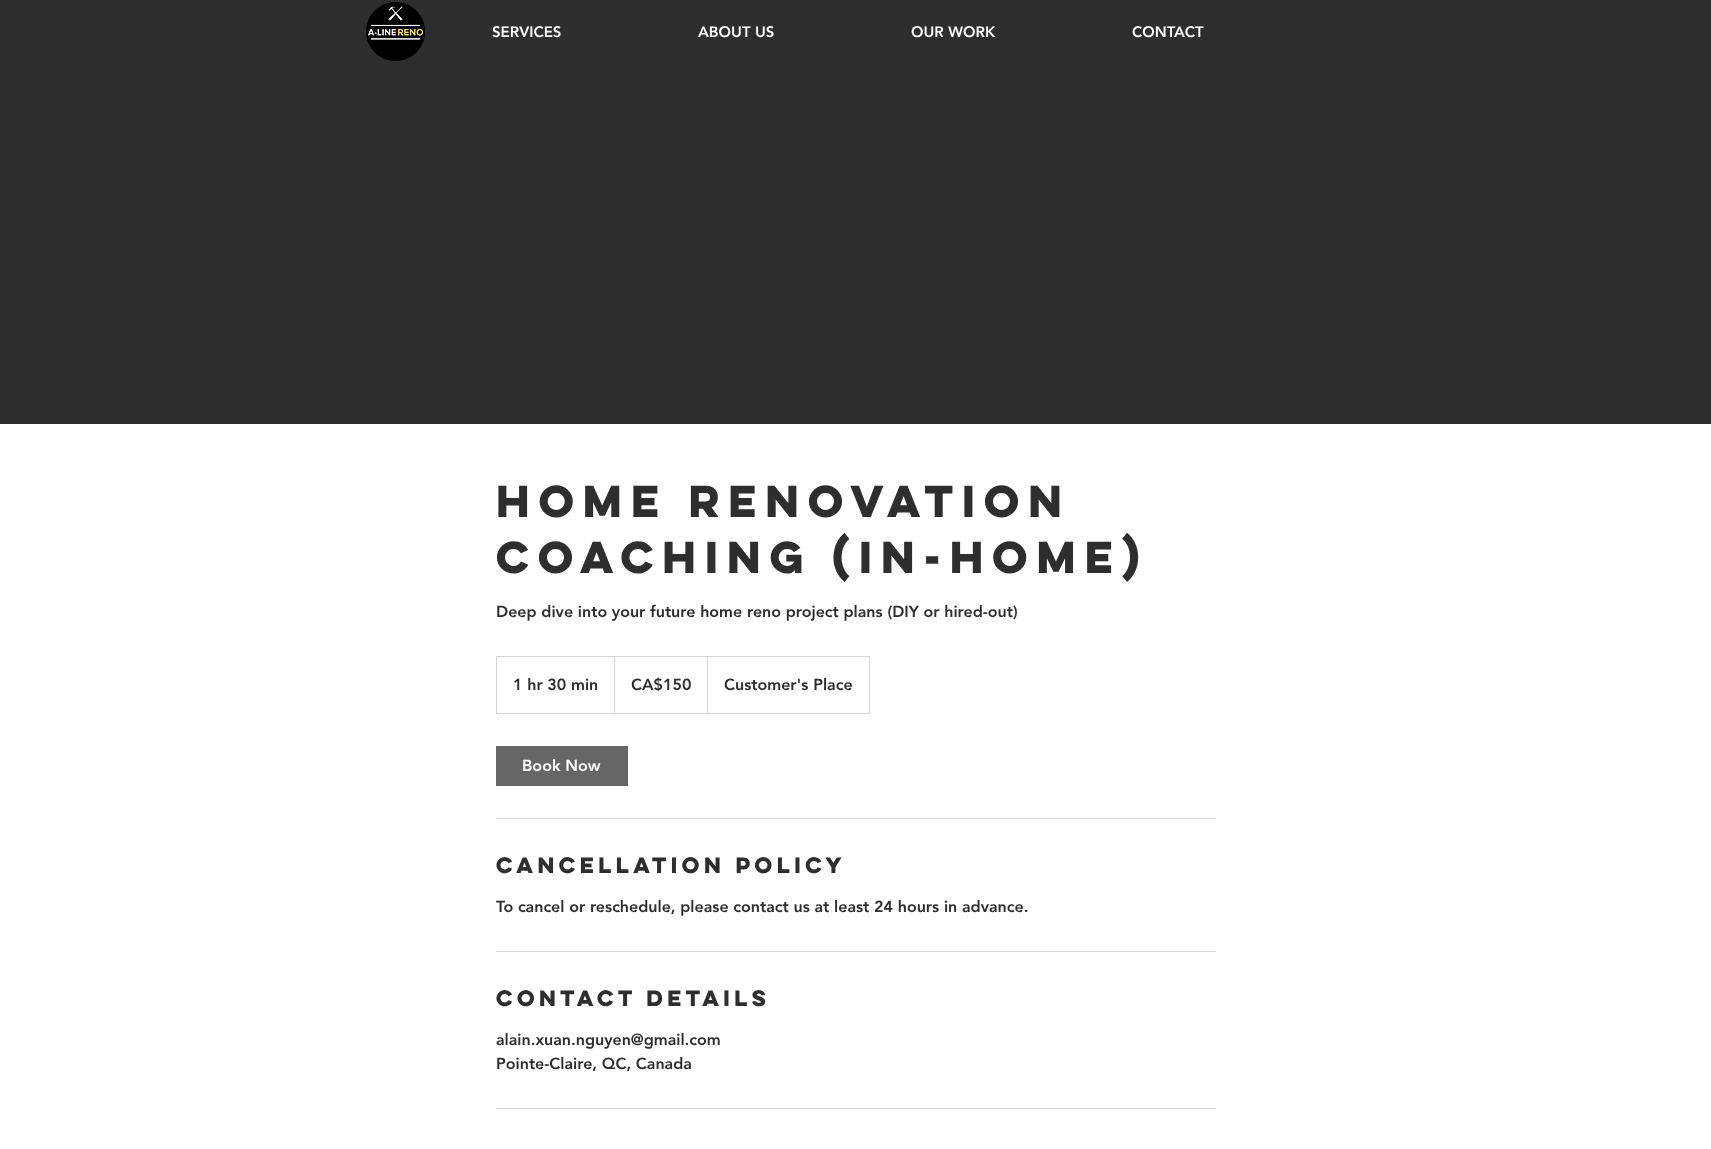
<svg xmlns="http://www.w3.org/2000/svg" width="1711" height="1149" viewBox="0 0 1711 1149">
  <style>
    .t1 { font: 900 15px 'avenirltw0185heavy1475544'; fill: #fff; }
    .t2 { font: bold 40px 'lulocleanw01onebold'; fill: #2f2e2e; }
    .t3 { font: 900 16px 'avenirltw0185heavy1475544'; fill: #2f2e2e; }
    .t4 { font: 900 16px 'avenirltw0185heavy1475544'; fill: #fff; }
    .t5 { font: bold 20px 'lulocleanw01onebold'; fill: #2f2e2e; }
  </style>
  <rect width="100%" height="100%" fill="#fff"/>
  <rect x="0" y="0" width="1711" height="424" fill="#2f2e2e"/>
  <image x="366" y="2" width="59" height="59" href="images/1.png"/>
  <text x="492" y="37" class="t1">SERVICES</text>
  <text x="698" y="37" class="t1">ABOUT US</text>
  <text x="911" y="37" class="t1">OUR WORK</text>
  <text x="1132" y="37" class="t1">CONTACT</text>
  <text x="496" y="517" class="t2">Home Renovation</text>
  <text x="496" y="573" class="t2">Coaching (In-Home)</text>
  <text x="496" y="617" class="t3">Deep dive into your future home reno project plans (DIY or hired-out)</text>
  <rect x="496.5" y="656.5" width="373" height="57" fill="none" stroke="#d5d5d5"/>
  <text x="513" y="690" class="t3">1 hr 30 min</text>
  <path d="M614 713V656L615 657V713Z" fill="#d5d5d5"/>
  <text x="631" y="690" class="t3">CA$150</text>
  <path d="M707 713V656L708 657V713Z" fill="#d5d5d5"/>
  <text x="724" y="690" class="t3">Customer's Place</text>
  <rect x="496" y="746" width="132" height="40" fill="#666"/>
  <text x="522" y="771" class="t4">Book Now</text>
  <rect x="496" y="818" width="720" height="1" fill="#d5d5d5"/>
  <text x="496" y="873" class="t5">Cancellation Policy</text>
  <text x="496" y="912" class="t3">To cancel or reschedule, please contact us at least 24 hours in advance.</text>
  <rect x="496" y="951" width="720" height="1" fill="#d5d5d5"/>
  <text x="496" y="1006" class="t5">Contact Details</text>
  <text x="496" y="1045" class="t3">alain.xuan.nguyen@gmail.com</text>
  <text x="496" y="1069" class="t3">Pointe-Claire, QC, Canada</text>
  <rect x="496" y="1108" width="720" height="1" fill="#d5d5d5"/>
</svg>
